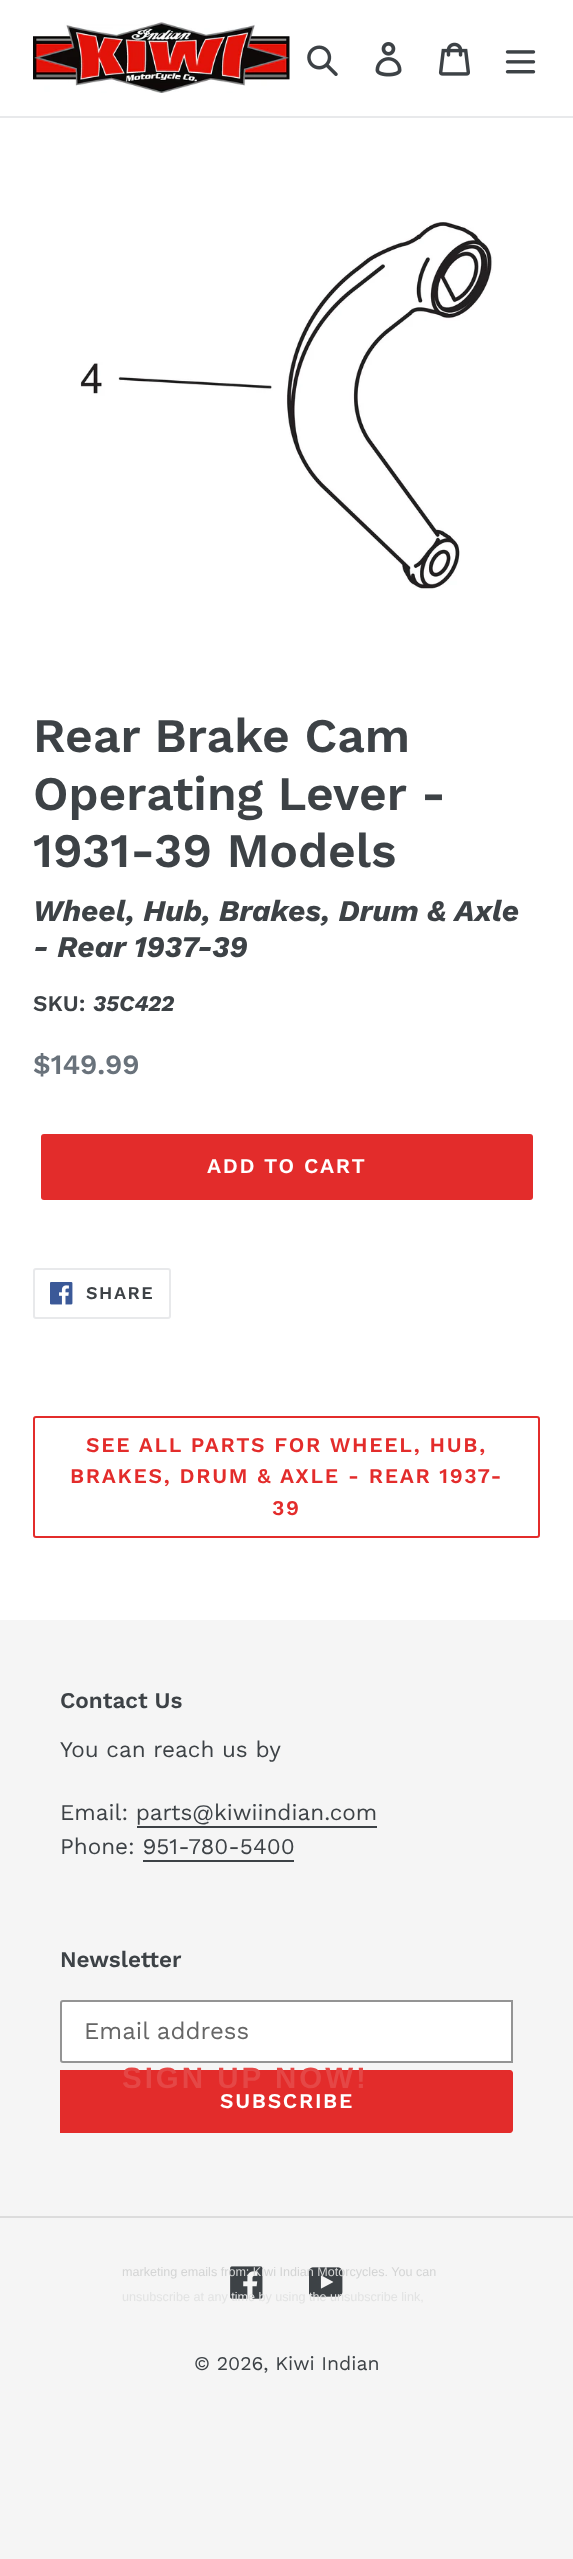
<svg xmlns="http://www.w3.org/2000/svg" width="573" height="2559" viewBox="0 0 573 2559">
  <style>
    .t1 { font: 600 48px Work Sans; fill: #3d4246; }
    .t2 { font: italic bold 30px Work Sans; fill: #3d4246; }
    .t3 { font: 600 22.5px Work Sans; fill: #3d4246; }
    .t4 { font: italic bold 22.5px Work Sans; fill: #3d4246; }
    .t5 { font: 600 28px Work Sans; fill: #69727b; }
    .t6 { font: 600 21px Work Sans; letter-spacing: 1.7px; fill: #fff; }
    .t7 { font: 600 18px Work Sans; letter-spacing: 1.5px; fill: #3d4246; }
    .t8 { font: 600 21px Work Sans; letter-spacing: 1.7px; fill: #e32c2b; }
    .t9 { font: 22.5px Work Sans; fill: #3d4246; }
    .t10 { font: 24px Work Sans; fill: #666; }
    .t11 { font: 19.5px Work Sans; fill: #3d4246; }
    .t12 { font: bold 29.5px Liberation Sans; letter-spacing: 3px; fill: #e54746; }
    .t13 { font: 12.6px Liberation Sans; fill: #d4d5d5; }
    .t14 { font: 12.6px Liberation Sans; fill: #e2e3e3; }
  </style>
  <rect width="100%" height="100%" fill="#f5f5f5"/>
  <rect x="0" y="0" width="573" height="1620" fill="#fff"/>
  <rect x="0" y="116" width="573" height="2" fill="#e8e9eb"/>
  <image x="33" y="22" width="257" height="71" href="images/1.png"/>
  <image x="307" y="45" width="31" height="31" href="images/2.png"/>
  <image x="375" y="42" width="27" height="35" href="images/3.png"/>
  <image x="438" y="42" width="32" height="34" href="images/4.png"/>
  <image x="505" y="50" width="31" height="24" href="images/5.png"/>
  <image x="80" y="222" width="413" height="368" href="images/6.png"/>
  <text x="33" y="752" class="t1">Rear Brake Cam</text>
  <text x="33" y="810" class="t1">Operating Lever -</text>
  <text x="33" y="867" class="t1">1931-39 Models</text>
  <text x="33" y="921" class="t2">Wheel, Hub, Brakes, Drum &amp; Axle</text>
  <text x="33" y="957" class="t2">- Rear 1937-39</text>
  <text x="33" y="1011" class="t3">SKU:</text>
  <text x="93" y="1011" class="t4">35C422</text>
  <text x="33" y="1074" class="t5">$149.99</text>
  <rect x="41" y="1134" width="492" height="66" rx="3" fill="#e32c2b"/>
  <text x="207" y="1173" class="t6">ADD TO CART</text>
  <rect x="34" y="1269" width="136" height="49" rx="2" fill="none" stroke="#e8e9eb" stroke-width="2"/>
  <image x="50" y="1282" width="23" height="23" href="images/7.png"/>
  <text x="86" y="1299" class="t7">SHARE</text>
  <rect x="34" y="1417" width="505" height="120" rx="2" fill="none" stroke="#e32c2b" stroke-width="2"/>
  <text x="86" y="1452" class="t8">SEE ALL PARTS FOR WHEEL, HUB,</text>
  <text x="70" y="1483" class="t8">BRAKES, DRUM &amp; AXLE - REAR 1937-</text>
  <text x="272" y="1515" class="t8">39</text>
  <text x="60" y="1708" class="t3">Contact Us</text>
  <text x="60" y="1757" class="t9">You can reach us by</text>
  <text x="60" y="1820" class="t9">Email: parts@kiwiindian.com</text>
  <rect x="137" y="1826" width="240" height="2" fill="#3d4246"/>
  <text x="60" y="1854" class="t9">Phone: 951-780-5400</text>
  <rect x="143" y="1860" width="151" height="2" fill="#3d4246"/>
  <text x="60" y="1967" class="t3">Newsletter</text>
  <path d="M63 2001H512V2062H63C62 2062 61 2061 61 2060V2003C61 2002 62 2001 63 2001Z" fill="#fff" stroke="#949494" stroke-width="2"/>
  <text x="84" y="2039" class="t10">Email address</text>
  <path d="M60 2070H510C511.5 2070 513 2071.5 513 2073V2130C513 2131.5 511.5 2133 510 2133H60Z" fill="#e32c2b"/>
  <text x="220" y="2108" class="t6">SUBSCRIBE</text>
  <rect x="0" y="2216" width="573" height="2" fill="#dcdcdc"/>
  <image x="230" y="2266" width="33" height="33" href="images/8.png"/>
  <image x="309" y="2267" width="34" height="30" href="images/9.png"/>
  <text x="194" y="2370" class="t11">© 2026, Kiwi Indian</text>
  <text x="122" y="2088" class="t12">SIGN UP NOW!</text>
  <text x="122" y="2276" class="t13">marketing emails from: Kiwi Indian Motorcycles. You can</text>
  <text x="122" y="2301" class="t14">unsubscribe at any time by using the unsubscribe link,</text>
</svg>
